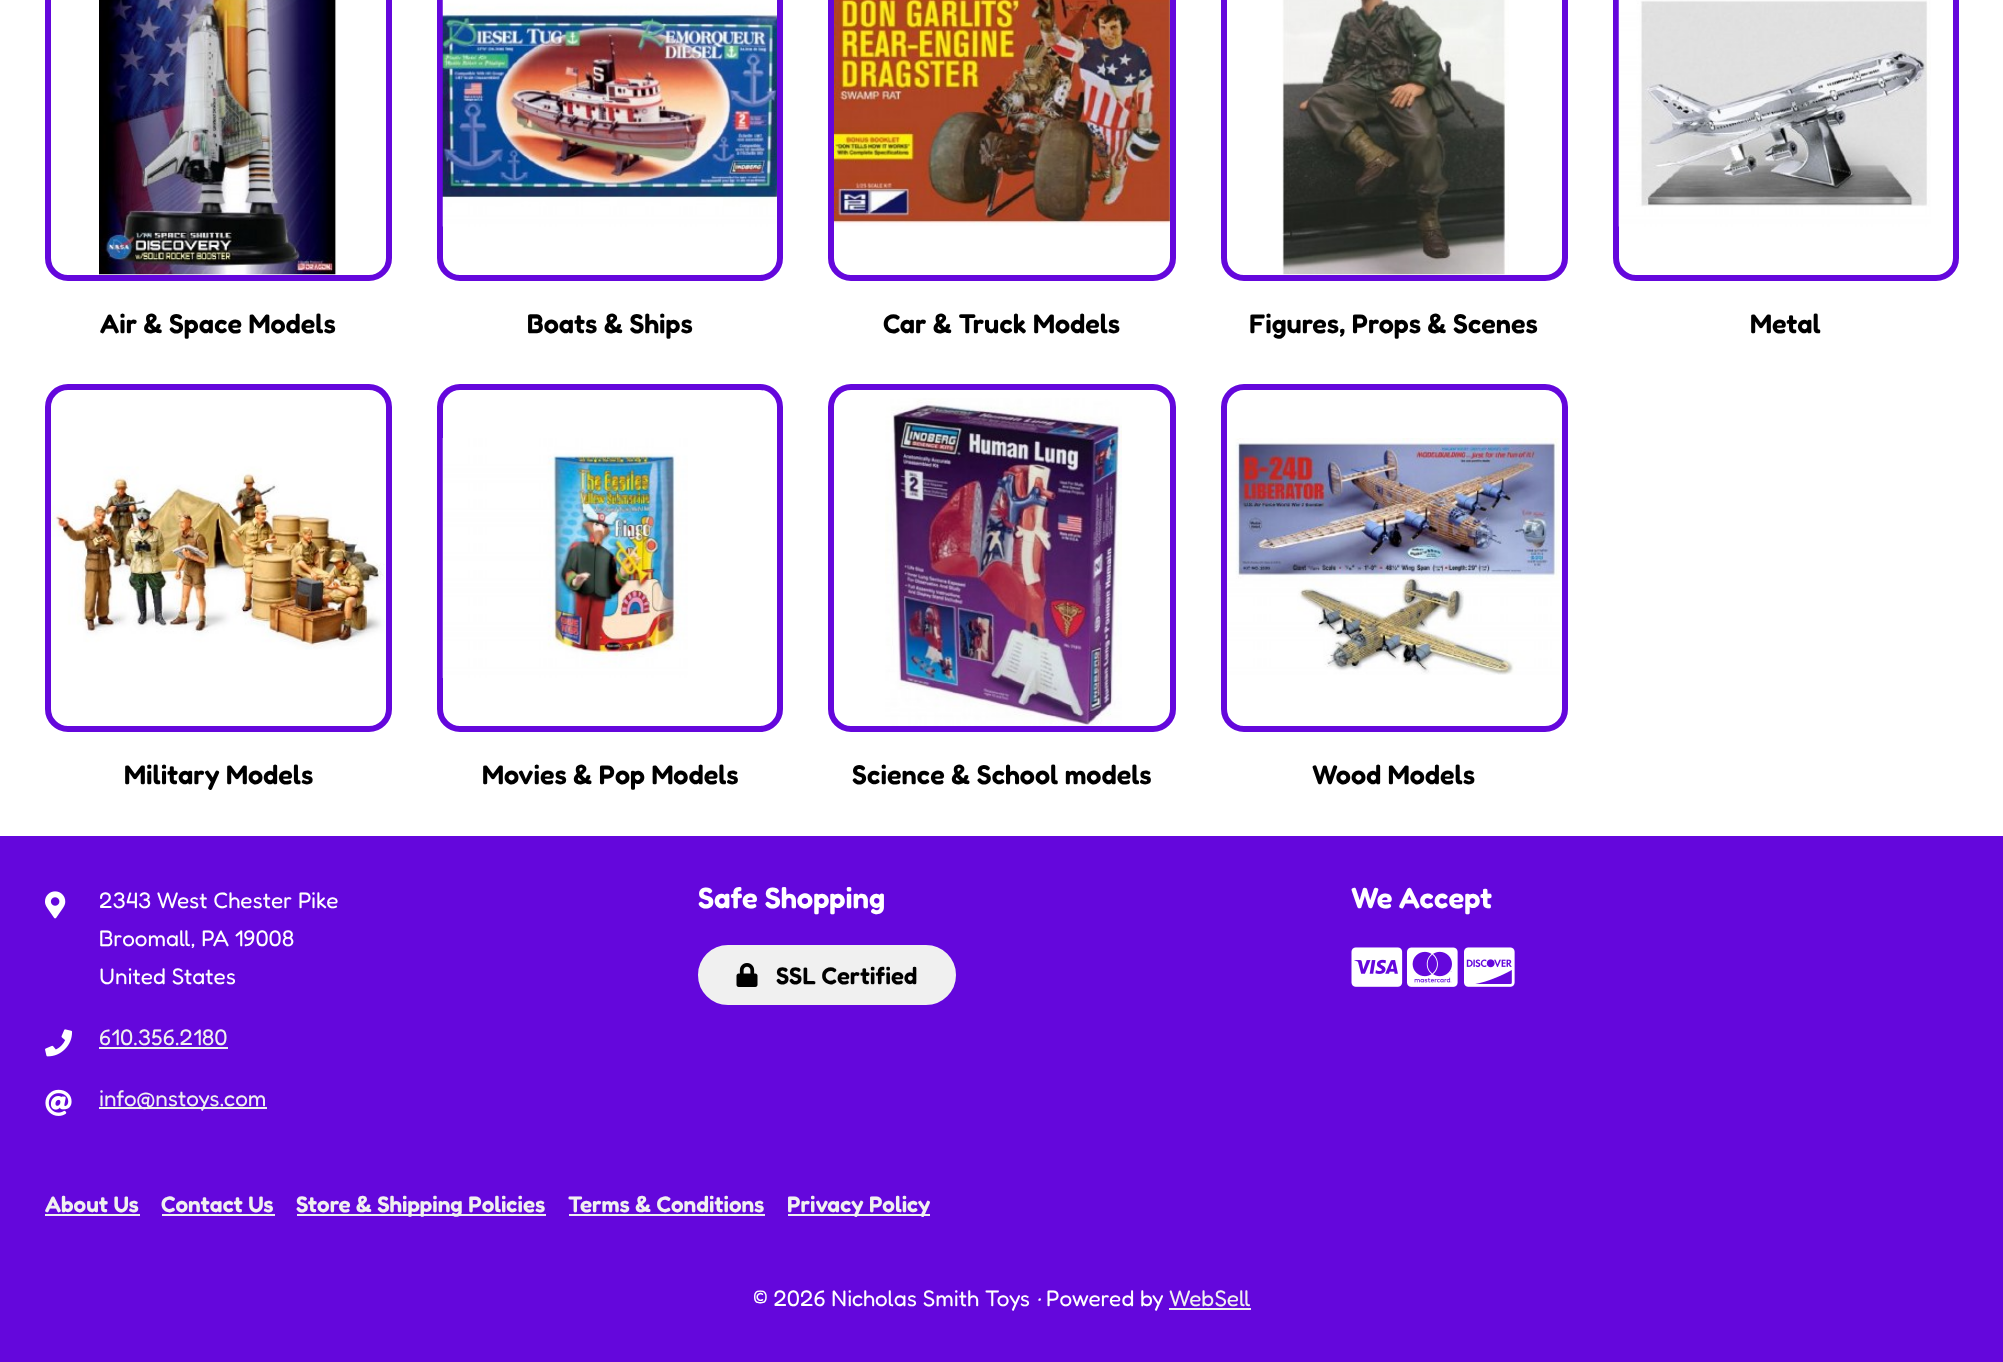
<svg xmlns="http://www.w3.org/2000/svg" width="2003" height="1362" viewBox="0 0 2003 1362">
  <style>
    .t1 { font: 600 27px Fredoka; fill: #000; }
    .t2 { font: 22.5px Fredoka; fill: #fff; }
    .t3 { font: 22.5px Fredoka; fill: #f0f0f0; }
    .t4 { font: 600 29.25px Fredoka; fill: #fff; }
    .t5 { font: 600 24px Fredoka; fill: #000; }
    .t6 { font: 600 22.5px Fredoka; fill: #f0f0f0; }
    .t7 { font: italic 22.5px Fredoka; fill: #fff; }
  </style>
  <rect width="100%" height="100%" fill="#fff"/>
  <rect x="48" y="-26" width="341" height="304" rx="20" fill="none" stroke="#6407dc" stroke-width="6"/>
  <image x="99" y="0" width="238" height="275" href="images/1.png"/>
  <text x="100" y="333" class="t1">Air &amp; Space Models</text>
  <rect x="440" y="-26" width="340" height="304" rx="20" fill="none" stroke="#6407dc" stroke-width="6"/>
  <image x="442" y="0" width="335" height="227" href="images/2.png"/>
  <text x="527" y="333" class="t1">Boats &amp; Ships</text>
  <rect x="831" y="-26" width="342" height="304" rx="20" fill="none" stroke="#6407dc" stroke-width="6"/>
  <image x="834" y="0" width="336" height="226" href="images/3.png"/>
  <text x="883" y="333" class="t1">Car &amp; Truck Models</text>
  <rect x="1224" y="-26" width="341" height="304" rx="20" fill="none" stroke="#6407dc" stroke-width="6"/>
  <image x="1282" y="0" width="227" height="275" href="images/4.png"/>
  <text x="1249" y="333" class="t1">Figures, Props &amp; Scenes</text>
  <rect x="1616" y="-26" width="340" height="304" rx="20" fill="none" stroke="#6407dc" stroke-width="6"/>
  <image x="1618" y="0" width="313" height="227" href="images/5.png"/>
  <text x="1750" y="333" class="t1">Metal</text>
  <rect x="48" y="387" width="341" height="342" rx="20" fill="none" stroke="#6407dc" stroke-width="6"/>
  <image x="51" y="466" width="334" height="184" href="images/6.png"/>
  <text x="124" y="784" class="t1">Military Models</text>
  <rect x="440" y="387" width="340" height="342" rx="20" fill="none" stroke="#6407dc" stroke-width="6"/>
  <image x="442" y="438" width="246" height="240" href="images/7.png"/>
  <text x="482" y="784" class="t1">Movies &amp; Pop Models</text>
  <rect x="831" y="387" width="342" height="342" rx="20" fill="none" stroke="#6407dc" stroke-width="6"/>
  <image x="885" y="398" width="237" height="328" href="images/8.png"/>
  <text x="852" y="784" class="t1">Science &amp; School models</text>
  <rect x="1224" y="387" width="341" height="342" rx="20" fill="none" stroke="#6407dc" stroke-width="6"/>
  <image x="1227" y="438" width="333" height="237" href="images/9.png"/>
  <text x="1312" y="784" class="t1">Wood Models</text>
  <rect x="0" y="836" width="2003" height="526" fill="#6407dc"/>
  <image x="45" y="891" width="21" height="28" href="images/10.png"/>
  <text x="99" y="908" class="t2">2343 West Chester Pike</text>
  <text x="99" y="946" class="t2">Broomall, PA 19008</text>
  <text x="99" y="984" class="t2">United States</text>
  <image x="45" y="1029" width="28" height="28" href="images/11.png"/>
  <text x="99" y="1045" class="t3">610.356.2180</text>
  <rect x="99" y="1047" width="129" height="2" fill="#f0f0f0"/>
  <image x="45" y="1089" width="27" height="27" href="images/12.png"/>
  <rect x="99" y="1107" width="168" height="2" fill="#f0f0f0"/>
  <text x="99" y="1106" class="t3">info@nstoys.com</text>
  <text x="698" y="908" class="t4">Safe Shopping</text>
  <rect x="699.5" y="946.5" width="255" height="57" rx="28.5" fill="#f0f0f0" stroke="#f0f0f0" stroke-width="3"/>
  <image x="736" y="963" width="22" height="24" href="images/13.png"/>
  <text x="776" y="984" class="t5">SSL Certified</text>
  <text x="1351" y="908" class="t4">We Accept</text>
  <image x="1351" y="947" width="52" height="40" href="images/14.png"/>
  <image x="1407" y="947" width="51" height="40" href="images/15.png"/>
  <image x="1464" y="947" width="51" height="40" href="images/16.png"/>
  <text x="45" y="1212" class="t6">About Us</text>
  <rect x="45" y="1214" width="95" height="2" fill="#f0f0f0"/>
  <text x="161" y="1212" class="t6">Contact Us</text>
  <rect x="162" y="1214" width="113" height="2" fill="#f0f0f0"/>
  <rect x="297" y="1214" width="249" height="2" fill="#f0f0f0"/>
  <text x="296" y="1212" class="t6">Store &amp; Shipping Policies</text>
  <text x="568" y="1212" class="t6">Terms &amp; Conditions</text>
  <rect x="569" y="1214" width="196" height="2" fill="#f0f0f0"/>
  <rect x="788" y="1214" width="142" height="2" fill="#f0f0f0"/>
  <text x="787" y="1212" class="t6">Privacy Policy</text>
  <text x="753" y="1306" class="t2">© 2026 Nicholas Smith Toys</text>
  <text x="1036" y="1306" class="t7">·</text>
  <text x="1046" y="1306" class="t2">Powered by</text>
  <text x="1169" y="1306" class="t3">WebSell</text>
  <rect x="1169" y="1308" width="82" height="2" fill="#f0f0f0"/>
</svg>
